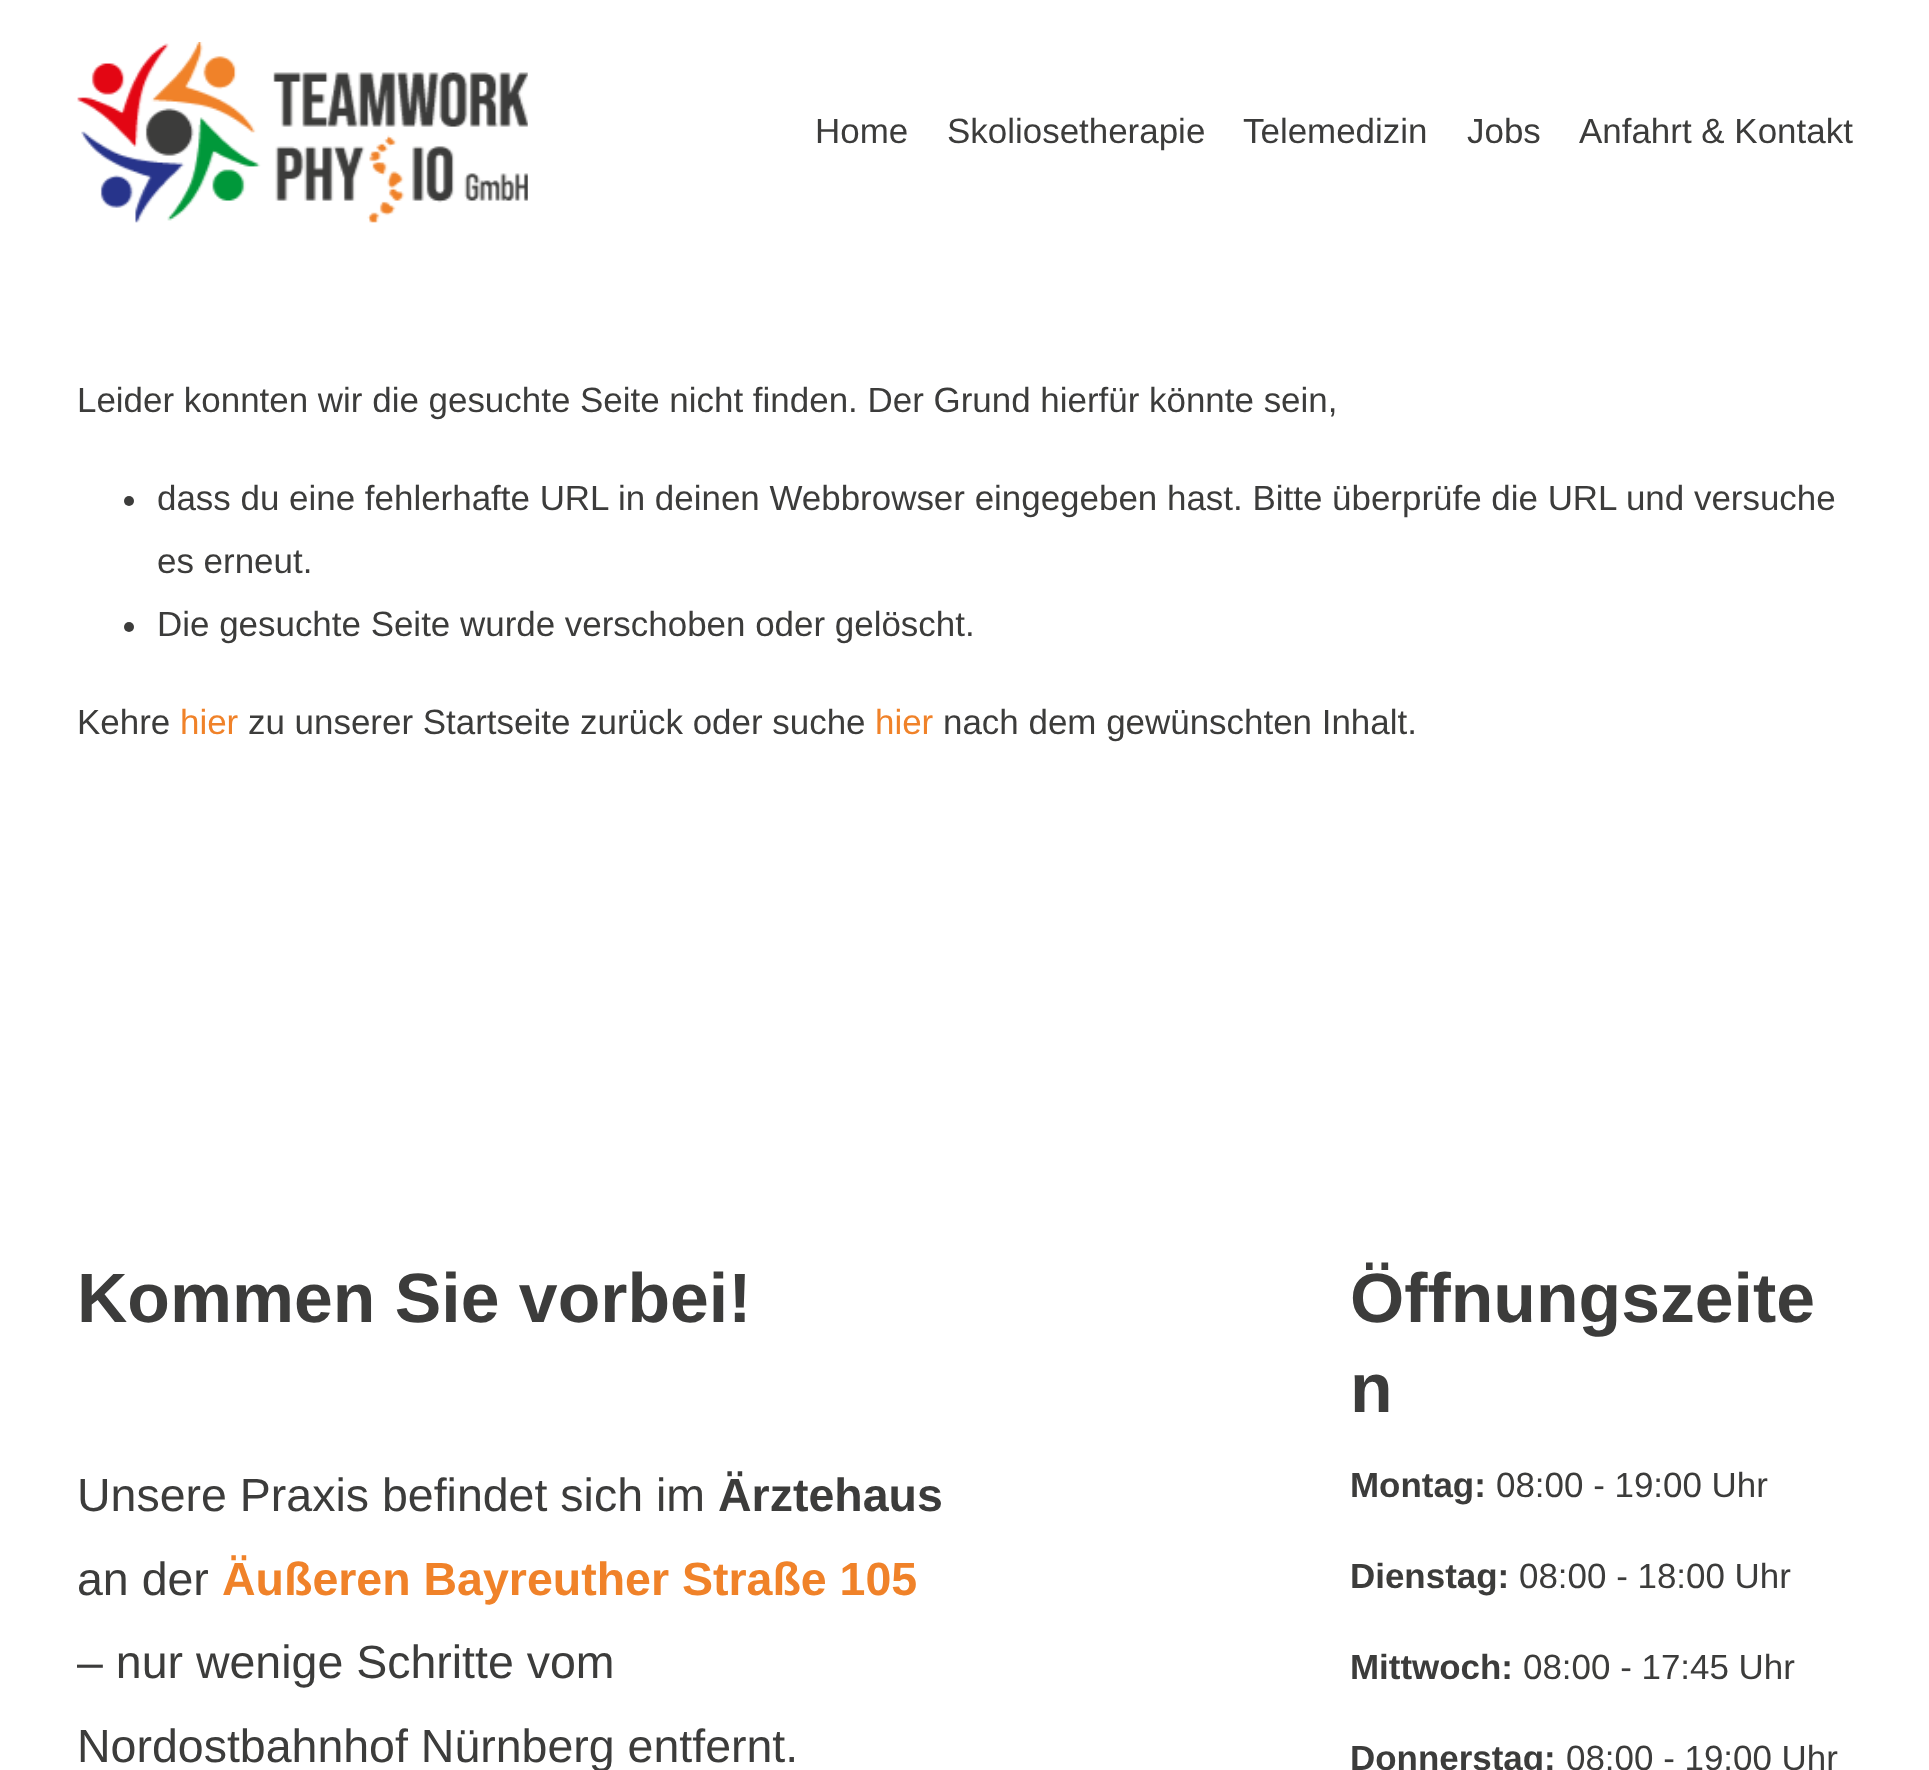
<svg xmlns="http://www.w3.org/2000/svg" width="1929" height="1770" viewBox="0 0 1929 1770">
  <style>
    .t1 { font: 34.95px Liberation Sans; fill: #3c3c3b; }
    .t2 { font: 34.95px Liberation Sans; fill: #f08229; }
    .t3 { font: bold 69.75px Liberation Sans; fill: #3c3c3b; }
    .t4 { font: 46.5px Liberation Sans; fill: #3c3c3b; }
    .t5 { font: bold 46.5px Liberation Sans; fill: #3c3c3b; }
    .t6 { font: bold 46.5px Liberation Sans; fill: #f08229; }
    .t7 { font: bold 34.95px Liberation Sans; fill: #3c3c3b; }
  </style>
  <rect width="100%" height="100%" fill="#fff"/>
  <image x="77" y="42" width="451" height="181" href="images/1.png"/>
  <text x="815" y="143" class="t1">Home</text>
  <text x="947" y="143" class="t1">Skoliosetherapie</text>
  <text x="1243" y="143" class="t1">Telemedizin</text>
  <text x="1467" y="143" class="t1">Jobs</text>
  <text x="1579" y="143" class="t1">Anfahrt &amp; Kontakt</text>
  <text x="77" y="412" class="t1">Leider konnten wir die gesuchte Seite nicht finden. Der Grund hierfür könnte sein,</text>
  <circle cx="129" cy="501" r="5" fill="#3c3c3b"/>
  <text x="157" y="510" class="t1">dass du eine fehlerhafte URL in deinen Webbrowser eingegeben hast. Bitte überprüfe die URL und versuche</text>
  <text x="157" y="573" class="t1">es erneut.</text>
  <circle cx="129" cy="627" r="5" fill="#3c3c3b"/>
  <text x="157" y="636" class="t1">Die gesuchte Seite wurde verschoben oder gelöscht.</text>
  <text x="77" y="734" class="t1">Kehre</text>
  <text x="180" y="734" class="t2">hier</text>
  <text x="248" y="734" class="t1">zu unserer Startseite zurück oder suche</text>
  <text x="875" y="734" class="t2">hier</text>
  <text x="943" y="734" class="t1">nach dem gewünschten Inhalt.</text>
  <text x="77" y="1322" class="t3">Kommen Sie vorbei!</text>
  <text x="1350" y="1322" class="t3">Öffnungszeite</text>
  <text x="1350" y="1412" class="t3">n</text>
  <text x="77" y="1511" class="t4">Unsere Praxis befindet sich im</text>
  <text x="718" y="1511" class="t5">Ärztehaus</text>
  <text x="77" y="1595" class="t4">an der</text>
  <text x="222" y="1595" class="t6">Äußeren Bayreuther Straße 105</text>
  <text x="77" y="1678" class="t4">– nur wenige Schritte vom</text>
  <text x="77" y="1762" class="t4">Nordostbahnhof Nürnberg entfernt.</text>
  <text x="1350" y="1497" class="t7">Montag:</text>
  <text x="1496" y="1497" class="t1">08:00 - 19:00 Uhr</text>
  <text x="1350" y="1588" class="t7">Dienstag:</text>
  <text x="1519" y="1588" class="t1">08:00 - 18:00 Uhr</text>
  <text x="1350" y="1679" class="t7">Mittwoch:</text>
  <text x="1523" y="1679" class="t1">08:00 - 17:45 Uhr</text>
  <text x="1350" y="1770" class="t7">Donnerstag:</text>
  <text x="1566" y="1770" class="t1">08:00 - 19:00 Uhr</text>
</svg>
